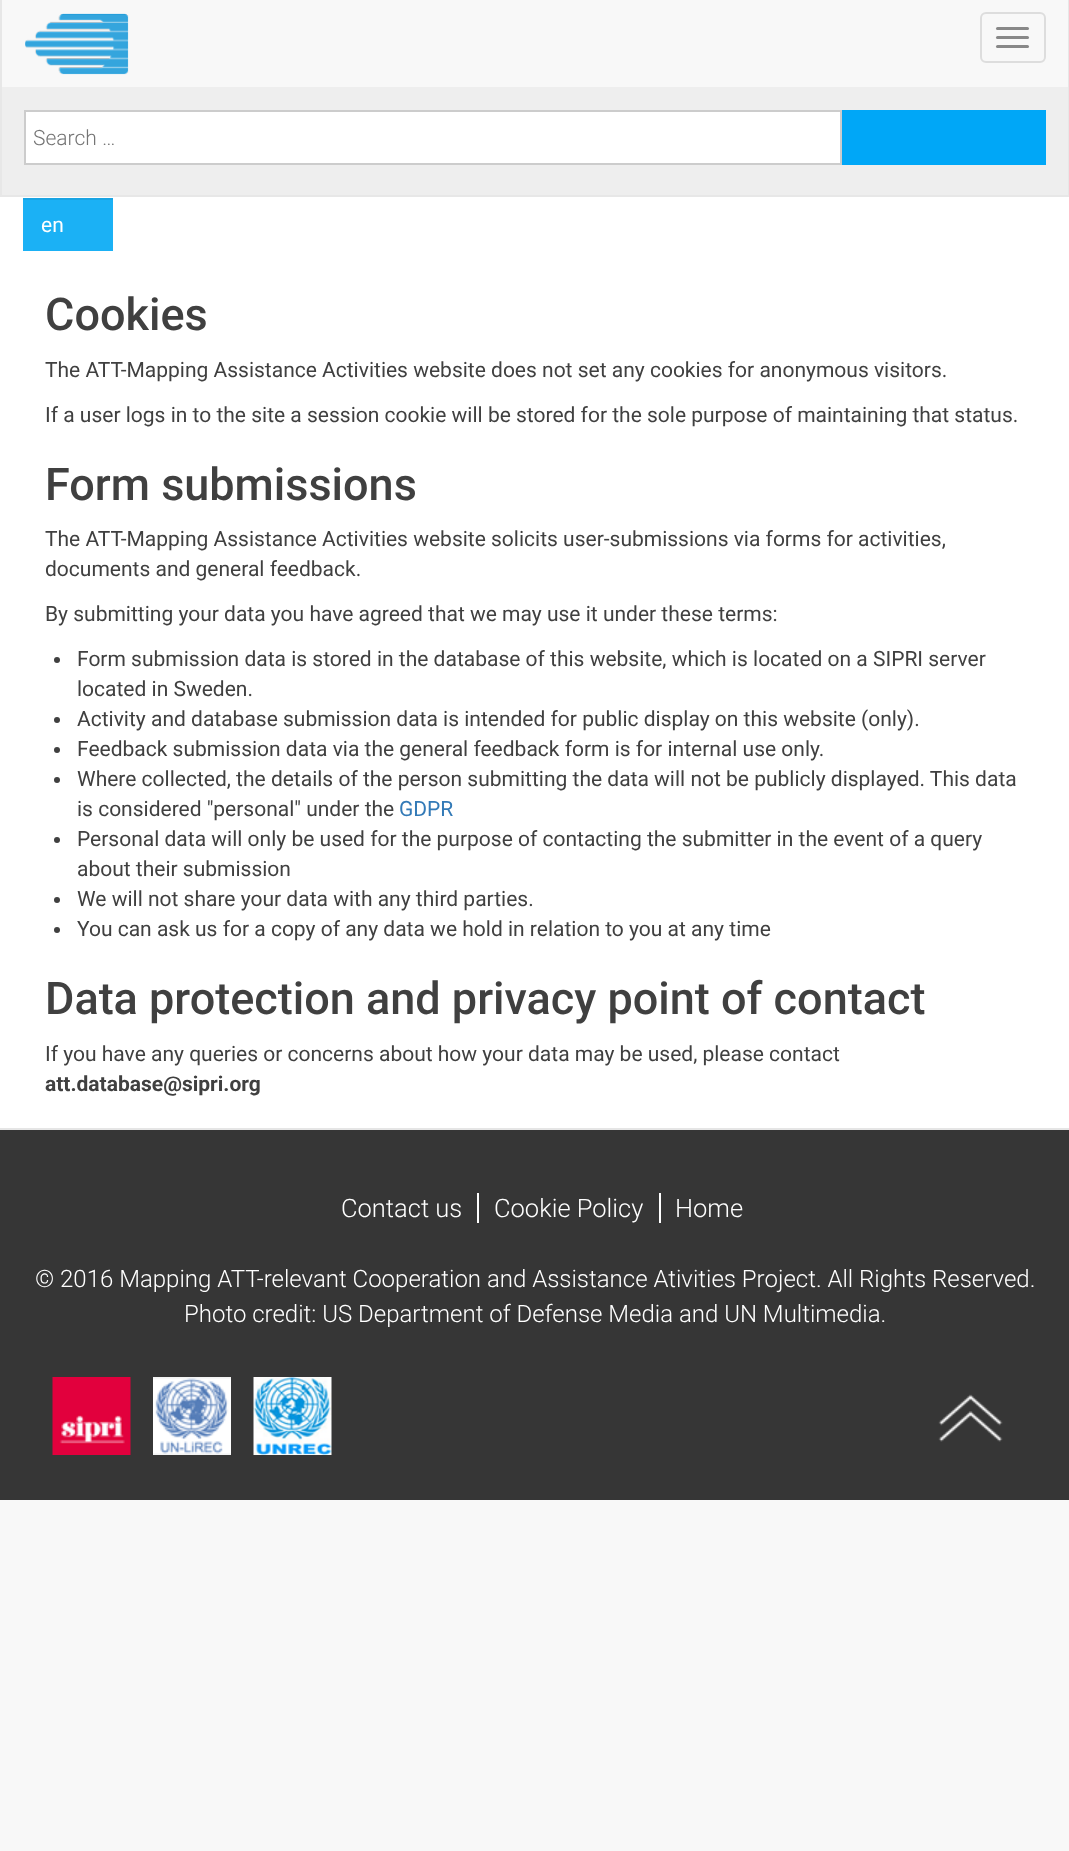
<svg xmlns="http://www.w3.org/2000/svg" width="1069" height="1851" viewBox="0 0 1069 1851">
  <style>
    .t1 { font: 300 21px Roboto; fill: #757575; }
    .t2 { font: 21px Roboto; fill: #fff; }
    .t3 { font: 500 45px Roboto; fill: #404040; }
    .t4 { font: 21px Roboto; fill: #404040; }
    .t5 { font: 21px Roboto; fill: #337ab7; }
    .t6 { font: bold 21px Roboto; fill: #404040; }
    .t7 { font: 300 25.5px Roboto; fill: #fff; }
    .t8 { font: 300 24px Roboto; fill: #fff; }
  </style>
  <rect width="100%" height="100%" fill="#f8f8f8"/>
  <rect x="1068" y="0" width="1" height="197" fill="#e7e7e7"/>
  <rect x="0" y="195" width="1069" height="2" fill="#e7e7e7"/>
  <rect x="0" y="0" width="2" height="197" fill="#e7e7e7"/>
  <image x="25" y="13" width="104" height="62" href="images/1.png"/>
  <rect x="981" y="13" width="64" height="49" rx="5" fill="none" stroke="#ddd" stroke-width="2"/>
  <rect x="996" y="27" width="33" height="3" rx="1.5" fill="#888"/>
  <rect x="996" y="36" width="33" height="3" rx="1.5" fill="#888"/>
  <rect x="996" y="45" width="33" height="3" rx="1.5" fill="#888"/>
  <rect x="2" y="87" width="1066" height="108" fill="#eee"/>
  <rect x="25" y="111" width="816" height="53" fill="#fff" stroke="#ccc" stroke-width="2"/>
  <text x="33" y="145" class="t1">Search …</text>
  <rect x="842" y="110" width="204" height="55" fill="#00a7f7"/>
  <rect x="0" y="197" width="1069" height="931" fill="#fff"/>
  <rect x="23" y="200" width="90" height="51" fill="#1bb1f5"/>
  <rect x="23" y="198" width="90" height="2" fill="#19a4e3"/>
  <text x="41" y="232" class="t2">en</text>
  <text x="45" y="330" class="t3">Cookies</text>
  <text x="45" y="377" class="t4">The ATT-Mapping Assistance Activities website does not set any cookies for anonymous visitors.</text>
  <text x="45" y="422" class="t4">If a user logs in to the site a session cookie will be stored for the sole purpose of maintaining that status.</text>
  <text x="45" y="500" class="t3">Form submissions</text>
  <text x="45" y="546" class="t4">The ATT-Mapping Assistance Activities website solicits user-submissions via forms for activities,</text>
  <text x="45" y="576" class="t4">documents and general feedback.</text>
  <text x="45" y="621" class="t4">By submitting your data you have agreed that we may use it under these terms:</text>
  <circle cx="57" cy="660" r="3" fill="#404040"/>
  <text x="77" y="666" class="t4">Form submission data is stored in the database of this website, which is located on a SIPRI server</text>
  <text x="77" y="696" class="t4">located in Sweden.</text>
  <circle cx="57" cy="720" r="3" fill="#404040"/>
  <text x="77" y="726" class="t4">Activity and database submission data is intended for public display on this website (only).</text>
  <circle cx="57" cy="750" r="3" fill="#404040"/>
  <text x="77" y="756" class="t4">Feedback submission data via the general feedback form is for internal use only.</text>
  <circle cx="57" cy="780" r="3" fill="#404040"/>
  <text x="77" y="786" class="t4">Where collected, the details of the person submitting the data will not be publicly displayed. This data</text>
  <text x="77" y="816" class="t4">is considered "personal" under the</text>
  <text x="399" y="816" class="t5">GDPR</text>
  <circle cx="57" cy="840" r="3" fill="#404040"/>
  <text x="77" y="846" class="t4">Personal data will only be used for the purpose of contacting the submitter in the event of a query</text>
  <text x="77" y="876" class="t4">about their submission</text>
  <circle cx="57" cy="900" r="3" fill="#404040"/>
  <text x="77" y="906" class="t4">We will not share your data with any third parties.</text>
  <circle cx="57" cy="930" r="3" fill="#404040"/>
  <text x="77" y="936" class="t4">You can ask us for a copy of any data we hold in relation to you at any time</text>
  <text x="45" y="1014" class="t3">Data protection and privacy point of contact</text>
  <text x="45" y="1061" class="t4">If you have any queries or concerns about how your data may be used, please contact</text>
  <text x="45" y="1091" class="t6">att.database@sipri.org</text>
  <rect x="0" y="1128" width="1069" height="2" fill="#e5e5e5"/>
  <rect x="0" y="1130" width="1069" height="370" fill="#363636"/>
  <text x="341" y="1217" class="t7">Contact us</text>
  <rect x="477" y="1193" width="2" height="30" fill="#fff"/>
  <text x="494" y="1217" class="t7">Cookie Policy</text>
  <rect x="659" y="1193" width="2" height="30" fill="#fff"/>
  <text x="675" y="1217" class="t7">Home</text>
  <text x="35" y="1287" class="t8">© 2016 Mapping ATT-relevant Cooperation and Assistance Ativities Project. All Rights Reserved.</text>
  <text x="184" y="1322" class="t8">Photo credit: US Department of Defense Media and UN Multimedia.</text>
  <image x="52" y="1377" width="79" height="78" href="images/2.png"/>
  <image x="153" y="1377" width="78" height="78" href="images/3.png"/>
  <image x="253" y="1377" width="79" height="78" href="images/4.png"/>
  <image x="938" y="1394" width="65" height="48" href="images/5.png"/>
</svg>
